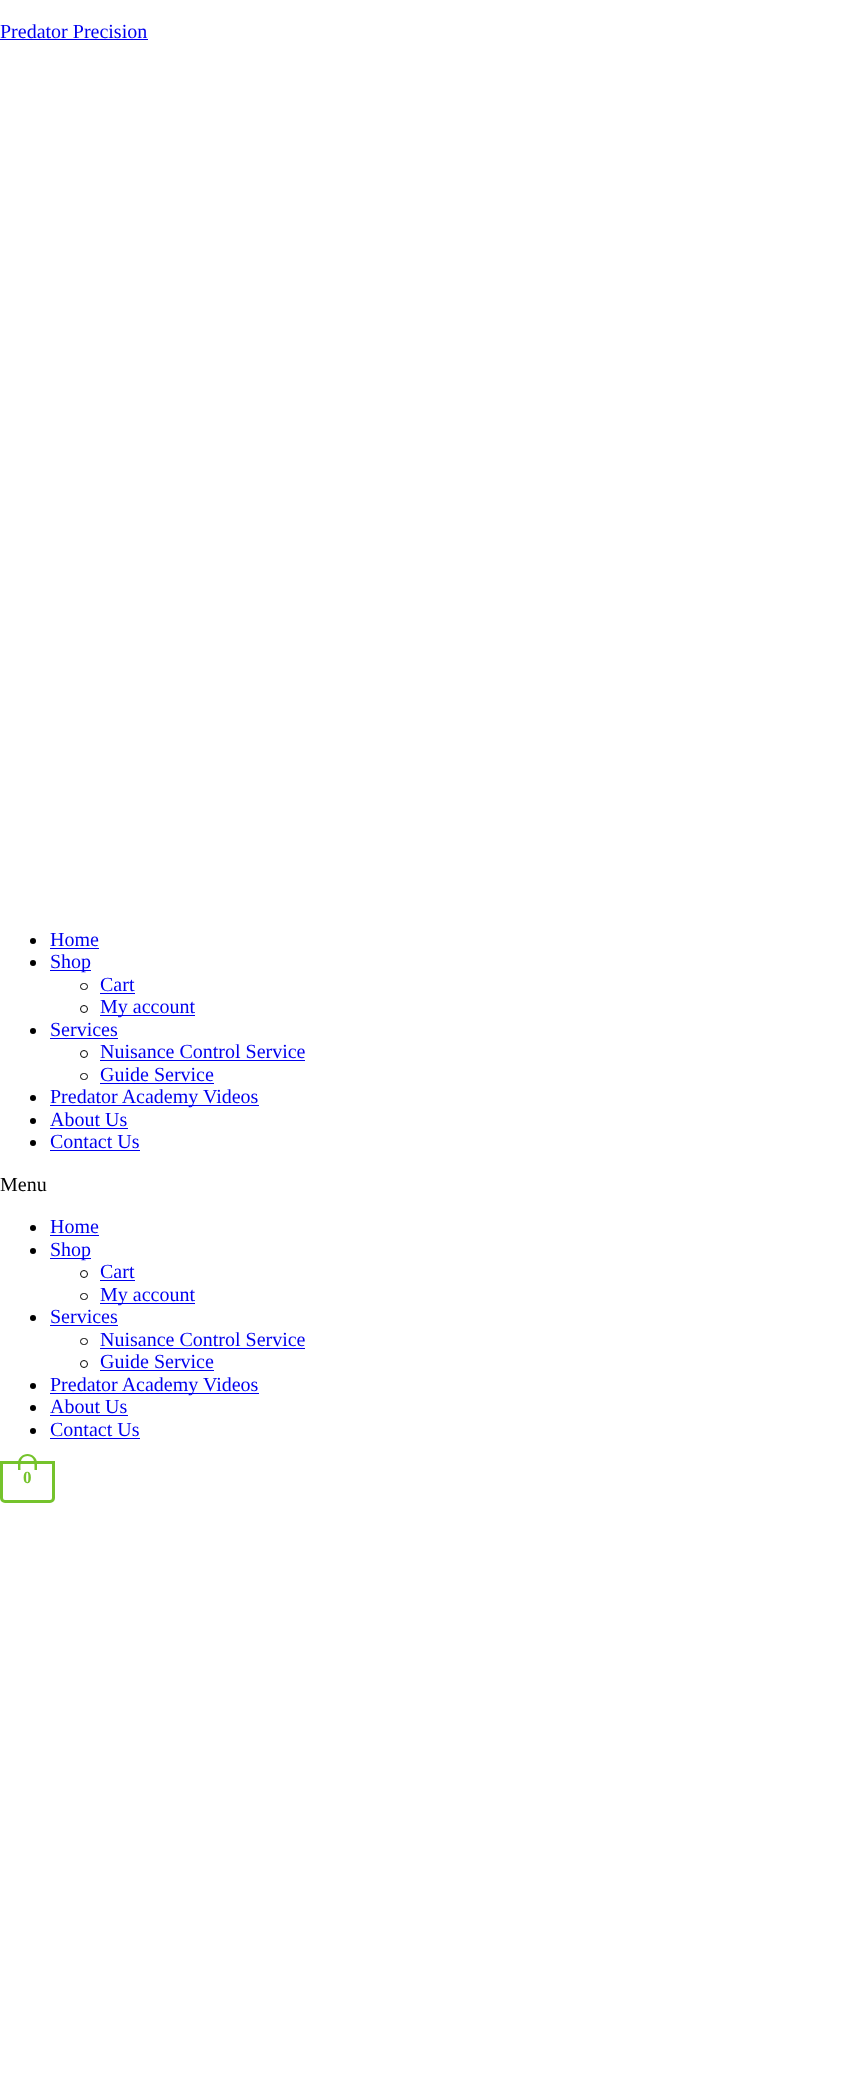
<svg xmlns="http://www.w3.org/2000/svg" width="854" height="2080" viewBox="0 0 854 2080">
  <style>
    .t1 { font: 20px Liberation Serif; fill: #00e; }
    .t2 { font: 20px Liberation Serif; fill: #000; }
    .t3 { font: bold 17px Liberation Serif; fill: #75c32c; }
  </style>
  <rect width="100%" height="100%" fill="#fff"/>
  <text x="0" y="38" class="t1">Predator Precision</text>
  <rect x="0" y="39" width="148" height="1" fill="#00e"/>
  <circle cx="33" cy="941" r="3" fill="#000"/>
  <text x="50" y="946" class="t1">Home</text>
  <rect x="50" y="948" width="49" height="1" fill="#00e"/>
  <circle cx="33" cy="963" r="3" fill="#000"/>
  <rect x="50" y="970" width="41" height="1" fill="#00e"/>
  <text x="50" y="968" class="t1">Shop</text>
  <rect x="80.5" y="983.5" width="7" height="6" rx="3" fill="none" stroke="#000"/>
  <text x="100" y="991" class="t1">Cart</text>
  <rect x="100" y="993" width="35" height="1" fill="#00e"/>
  <circle cx="84" cy="1009" r="3.5" fill="none" stroke="#000"/>
  <rect x="100" y="1015" width="95" height="1" fill="#00e"/>
  <text x="100" y="1013" class="t1">My account</text>
  <circle cx="33" cy="1031" r="3" fill="#000"/>
  <text x="50" y="1036" class="t1">Services</text>
  <rect x="50" y="1038" width="68" height="1" fill="#00e"/>
  <circle cx="84" cy="1054" r="3.5" fill="none" stroke="#000"/>
  <text x="100" y="1058" class="t1">Nuisance Control Service</text>
  <rect x="100" y="1060" width="205" height="1" fill="#00e"/>
  <rect x="80.5" y="1073.5" width="7" height="6" rx="3" fill="none" stroke="#000"/>
  <text x="100" y="1081" class="t1">Guide Service</text>
  <rect x="100" y="1083" width="114" height="1" fill="#00e"/>
  <circle cx="33" cy="1098" r="3" fill="#000"/>
  <rect x="50" y="1105" width="209" height="1" fill="#00e"/>
  <text x="50" y="1103" class="t1">Predator Academy Videos</text>
  <circle cx="33" cy="1121" r="3" fill="#000"/>
  <text x="50" y="1126" class="t1">About Us</text>
  <rect x="50" y="1128" width="78" height="1" fill="#00e"/>
  <circle cx="33" cy="1143" r="3" fill="#000"/>
  <text x="50" y="1148" class="t1">Contact Us</text>
  <rect x="50" y="1150" width="90" height="1" fill="#00e"/>
  <text x="0" y="1191" class="t2">Menu</text>
  <circle cx="33" cy="1228" r="3" fill="#000"/>
  <text x="50" y="1233" class="t1">Home</text>
  <rect x="50" y="1235" width="49" height="1" fill="#00e"/>
  <circle cx="33" cy="1251" r="3" fill="#000"/>
  <rect x="50" y="1258" width="41" height="1" fill="#00e"/>
  <text x="50" y="1256" class="t1">Shop</text>
  <circle cx="84" cy="1274" r="3.5" fill="none" stroke="#000"/>
  <text x="100" y="1278" class="t1">Cart</text>
  <rect x="100" y="1280" width="35" height="1" fill="#00e"/>
  <rect x="80.5" y="1293.5" width="7" height="6" rx="3" fill="none" stroke="#000"/>
  <rect x="100" y="1303" width="95" height="1" fill="#00e"/>
  <text x="100" y="1301" class="t1">My account</text>
  <circle cx="33" cy="1318" r="3" fill="#000"/>
  <text x="50" y="1323" class="t1">Services</text>
  <rect x="50" y="1325" width="68" height="1" fill="#00e"/>
  <rect x="80.5" y="1338.5" width="7" height="6" rx="3" fill="none" stroke="#000"/>
  <text x="100" y="1346" class="t1">Nuisance Control Service</text>
  <rect x="100" y="1348" width="205" height="1" fill="#00e"/>
  <circle cx="84" cy="1364" r="3.5" fill="none" stroke="#000"/>
  <text x="100" y="1368" class="t1">Guide Service</text>
  <rect x="100" y="1370" width="114" height="1" fill="#00e"/>
  <circle cx="33" cy="1386" r="3" fill="#000"/>
  <rect x="50" y="1393" width="209" height="1" fill="#00e"/>
  <text x="50" y="1391" class="t1">Predator Academy Videos</text>
  <circle cx="33" cy="1408" r="3" fill="#000"/>
  <text x="50" y="1413" class="t1">About Us</text>
  <rect x="50" y="1415" width="78" height="1" fill="#00e"/>
  <circle cx="33" cy="1431" r="3" fill="#000"/>
  <text x="50" y="1436" class="t1">Contact Us</text>
  <rect x="50" y="1438" width="90" height="1" fill="#00e"/>
  <path d="M1.5 1462.5H53.5V1498C53.5 1500 52 1501.5 50 1501.5H5C3 1501.5 1.5 1500 1.5 1498Z" fill="none" stroke="#75c32c" stroke-width="3"/>
  <path d="M27.5 1454C32.5 1454 37 1458 37 1463V1470H18V1463C18 1458 22.5 1454 27.5 1454ZM27.5 1456C35.5 1456 34.5 1464.5 34.5 1470H20.5C20.5 1464.5 19.5 1456 27.5 1456Z" fill="#75c32c" fill-rule="evenodd"/>
  <text x="23" y="1483" class="t3">0</text>
</svg>
